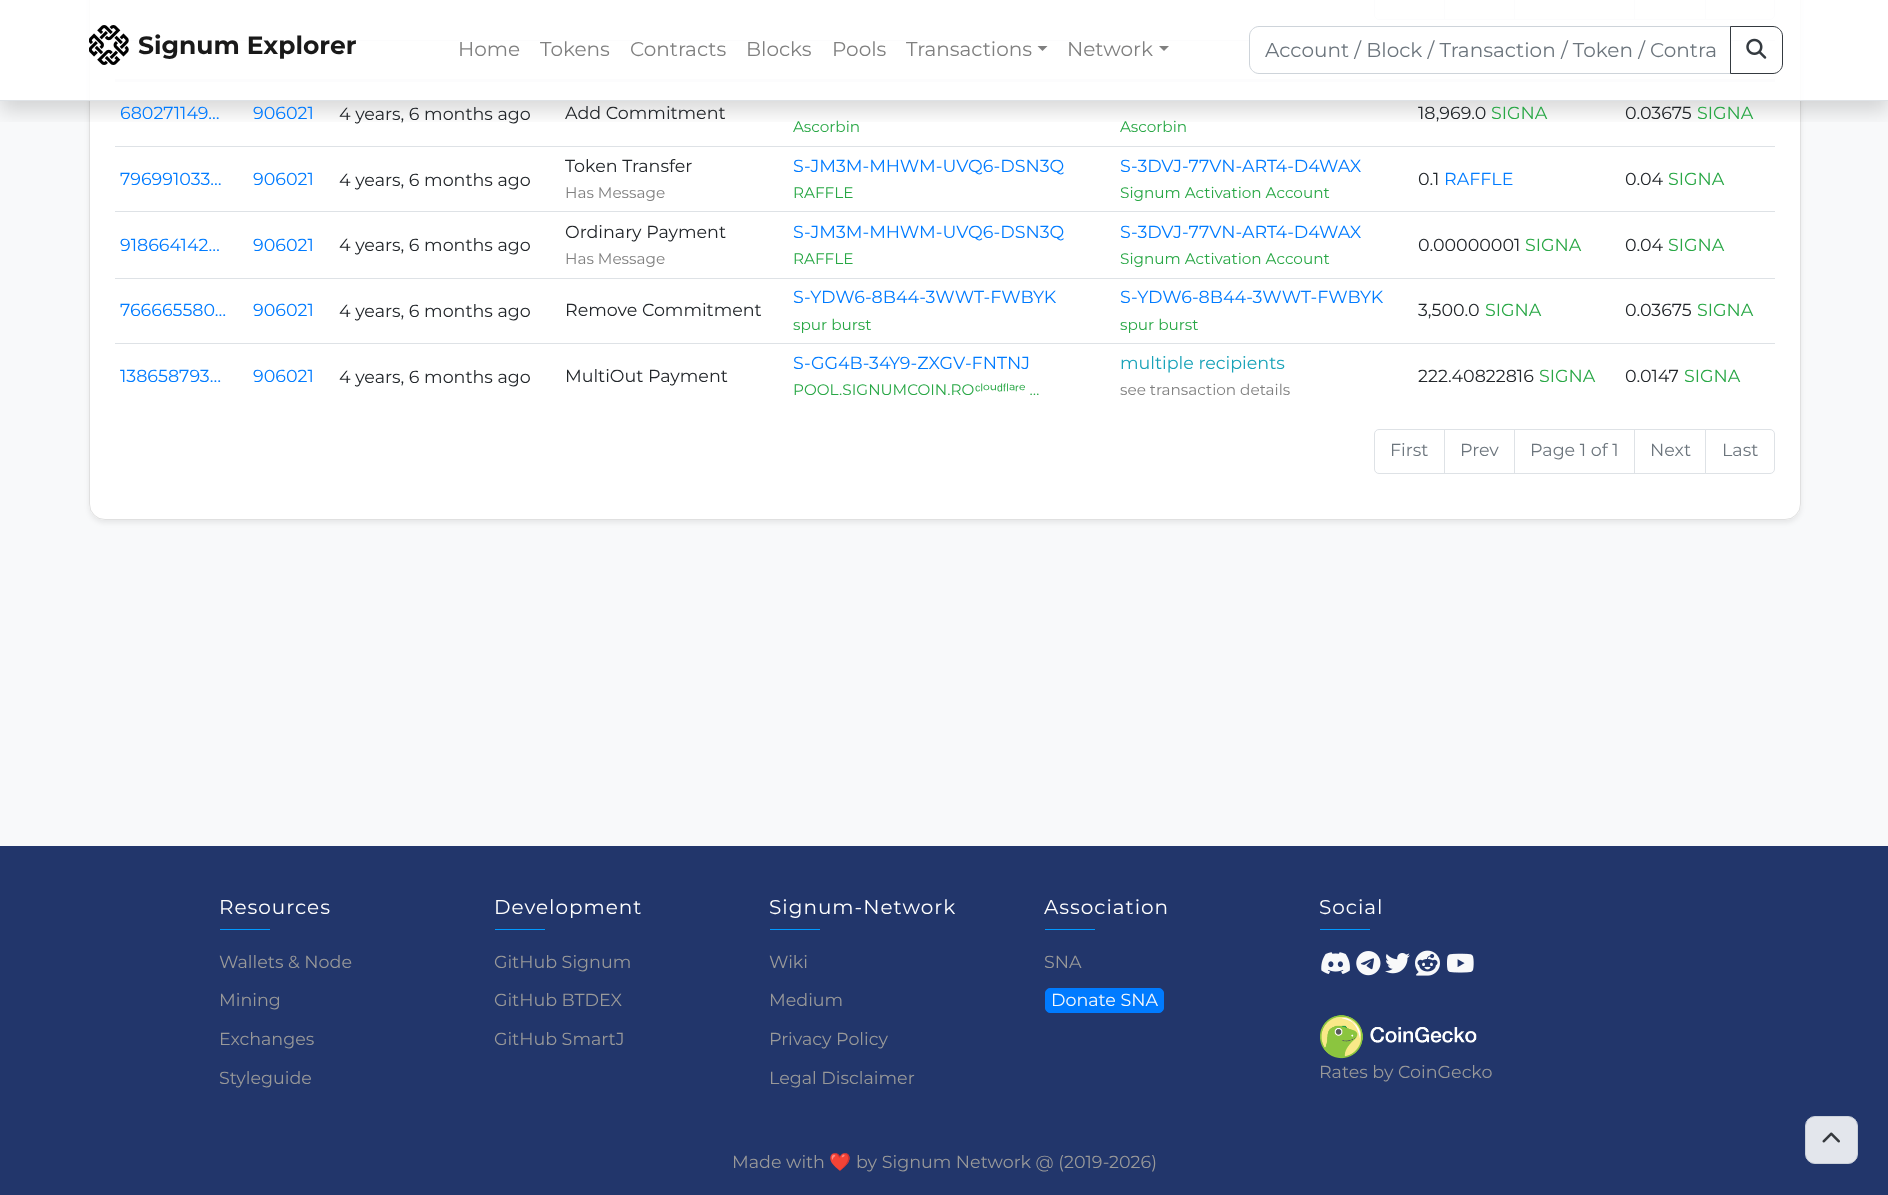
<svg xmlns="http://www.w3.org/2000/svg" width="1888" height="1195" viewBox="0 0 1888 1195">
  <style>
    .t1 { font: bold 25px Montserrat; fill: #191919; }
    .t2 { font: 20px Montserrat; fill: #808080; }
    .t3 { font: 20px Montserrat; fill: #6c757d; }
    .t4 { font: 17.5px Montserrat; fill: #007bff; }
    .t5 { font: 17.5px Montserrat; fill: #212529; }
    .t6 { font: 17.5px Montserrat; fill: #28a745; }
    .t7 { font: 15.25px Montserrat; fill: #28a745; }
    .t8 { font: 15.25px Montserrat; fill: #808080; }
    .t9 { font: 15.25px Liberation Sans; fill: #28a745; }
    .t10 { font: 17.5px Montserrat; fill: #17a2b8; }
    .t11 { font: 17.5px Montserrat; fill: #6c757d; }
    .t12 { font: 20px Montserrat; letter-spacing: 1px; fill: #fff; }
    .t13 { font: 17.5px Montserrat; fill: #999; }
    .t14 { font: 17.5px Montserrat; fill: #f8f9fa; }
    .t15 { font: 17.5px Noto Color Emoji; fill: #999; }
  </style>
  <defs>
    <clipPath id="clip1"><rect x="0" y="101" width="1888" height="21"/></clipPath>
  </defs>
  <rect width="100%" height="100%" fill="#f8f9fa"/>
  <rect x="89" y="-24" width="1712" height="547" rx="16" fill="#00000012" filter="blur(2.5px)"/>
  <rect x="89" y="-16" width="1712" height="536" rx="16" fill="#fff"/>
  <rect x="89.5" y="-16.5" width="1711" height="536" rx="15.5" fill="none" stroke="#0000001f"/>
  <path d="M1379-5.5H1444.5V19.5H1379C1376.5 19.5 1374.5 17.5 1374.5 15V-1C1374.5-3.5 1376.5-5.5 1379-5.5Z" fill="none" stroke="#dee2e6"/>
  <rect x="1444.5" y="-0.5" width="70" height="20" fill="none" stroke="#dee2e6"/>
  <rect x="1514.5" y="-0.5" width="120" height="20" fill="none" stroke="#dee2e6"/>
  <rect x="1634.5" y="-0.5" width="71" height="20" fill="none" stroke="#dee2e6"/>
  <path d="M1705.5-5.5H1770C1772.5-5.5 1774.5-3.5 1774.5-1V15C1774.5 17.5 1772.5 19.5 1770 19.5H1705.5Z" fill="#fff" stroke="#dee2e6"/>
  <rect x="1731" y="40" width="44" height="1" fill="#dee2e6"/>
  <rect x="115" y="79" width="1660" height="3" fill="#dee2e6"/>
  <rect x="115" y="40" width="1134" height="1" fill="#dee2e6"/>
  <g clip-path="url(#clip1)">
    <rect x="0" y="10" width="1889" height="101" fill="#00000026" filter="blur(10px)"/>
  </g>
  <rect x="0" y="0" width="1888" height="100" fill="#ffffffe6"/>
  <rect x="0" y="100" width="1888" height="1" fill="#dee2e6"/>
  <image x="89" y="25" width="40" height="40" href="images/1.png"/>
  <text x="138" y="54" class="t1">Signum Explorer</text>
  <text x="458" y="56" class="t2">Home</text>
  <text x="540" y="56" class="t2">Tokens</text>
  <text x="630" y="56" class="t2">Contracts</text>
  <text x="746" y="56" class="t2">Blocks</text>
  <text x="832" y="56" class="t2">Pools</text>
  <text x="906" y="56" class="t2">Transactions</text>
  <path d="M1037.5 46H1047.5L1042.5 51Z" fill="#808080"/>
  <text x="1067" y="56" class="t2">Network</text>
  <path d="M1159 46H1169L1164 51Z" fill="#808080"/>
  <path d="M1259 26.5H1730.5V73.5H1259C1254 73.5 1249.5 69 1249.5 64V36C1249.5 31 1254 26.5 1259 26.5Z" fill="none" stroke="#ced4da"/>
  <text x="1265" y="57" class="t3">Account / Block / Transaction / Token / Contra</text>
  <path d="M1730.5 26.5H1773C1778 26.5 1782.5 31 1782.5 36V64C1782.5 69 1778 73.5 1773 73.5H1730.5Z" fill="none" stroke="#343a40"/>
  <image x="1746" y="38" width="21" height="21" href="images/2.png"/>
  <text x="120" y="119" class="t4">680271149…</text>
  <text x="253" y="119" class="t4">906021</text>
  <text x="339" y="120" class="t5">4 years, 6 months ago</text>
  <text x="565" y="119" class="t5">Add Commitment</text>
  <text x="1418" y="119" class="t5">18,969.0</text>
  <text x="1491" y="119" class="t6">SIGNA</text>
  <text x="1625" y="119" class="t5">0.03675</text>
  <text x="1697" y="119" class="t6">SIGNA</text>
  <text x="793" y="132" class="t7">Ascorbin</text>
  <text x="1120" y="132" class="t7">Ascorbin</text>
  <text x="120" y="185" class="t4">796991033…</text>
  <text x="253" y="185" class="t4">906021</text>
  <text x="339" y="186" class="t5">4 years, 6 months ago</text>
  <text x="565" y="172" class="t5">Token Transfer</text>
  <text x="565" y="198" class="t8">Has Message</text>
  <text x="793" y="172" class="t4">S-JM3M-MHWM-UVQ6-DSN3Q</text>
  <text x="793" y="198" class="t7">RAFFLE</text>
  <text x="1120" y="172" class="t4">S-3DVJ-77VN-ART4-D4WAX</text>
  <text x="1120" y="198" class="t7">Signum Activation Account</text>
  <text x="1418" y="185" class="t5">0.1</text>
  <text x="1444" y="185" class="t4">RAFFLE</text>
  <rect x="115" y="146" width="1660" height="1" fill="#dee2e6"/>
  <text x="1625" y="185" class="t5">0.04</text>
  <text x="1668" y="185" class="t6">SIGNA</text>
  <text x="120" y="251" class="t4">918664142…</text>
  <text x="253" y="251" class="t4">906021</text>
  <text x="339" y="251" class="t5">4 years, 6 months ago</text>
  <text x="565" y="238" class="t5">Ordinary Payment</text>
  <text x="565" y="264" class="t8">Has Message</text>
  <text x="793" y="238" class="t4">S-JM3M-MHWM-UVQ6-DSN3Q</text>
  <text x="793" y="264" class="t7">RAFFLE</text>
  <text x="1120" y="238" class="t4">S-3DVJ-77VN-ART4-D4WAX</text>
  <text x="1120" y="264" class="t7">Signum Activation Account</text>
  <text x="1418" y="251" class="t5">0.00000001</text>
  <text x="1525" y="251" class="t6">SIGNA</text>
  <rect x="115" y="211" width="1660" height="1" fill="#dee2e6"/>
  <text x="1625" y="251" class="t5">0.04</text>
  <text x="1668" y="251" class="t6">SIGNA</text>
  <text x="120" y="316" class="t4">766665580…</text>
  <text x="253" y="316" class="t4">906021</text>
  <text x="339" y="317" class="t5">4 years, 6 months ago</text>
  <text x="565" y="316" class="t5">Remove Commitment</text>
  <text x="793" y="303" class="t4">S-YDW6-8B44-3WWT-FWBYK</text>
  <text x="793" y="330" class="t7">spur burst</text>
  <text x="1120" y="303" class="t4">S-YDW6-8B44-3WWT-FWBYK</text>
  <text x="1120" y="330" class="t7">spur burst</text>
  <text x="1418" y="316" class="t5">3,500.0</text>
  <text x="1485" y="316" class="t6">SIGNA</text>
  <rect x="115" y="278" width="1660" height="1" fill="#dee2e6"/>
  <text x="1625" y="316" class="t5">0.03675</text>
  <text x="1697" y="316" class="t6">SIGNA</text>
  <text x="120" y="382" class="t4">138658793…</text>
  <text x="253" y="382" class="t4">906021</text>
  <text x="339" y="383" class="t5">4 years, 6 months ago</text>
  <text x="565" y="382" class="t5">MultiOut Payment</text>
  <text x="793" y="369" class="t4">S-GG4B-34Y9-ZXGV-FNTNJ</text>
  <text x="793" y="395" class="t7">POOL.SIGNUMCOIN.RO</text>
  <text x="975" y="395" class="t9">ᶜˡ</text>
  <text x="983" y="395" class="t7">ᵒᵘ</text>
  <text x="997" y="395" class="t9">ᵈᶠˡ</text>
  <text x="1009" y="395" class="t7">ᵃ</text>
  <text x="1015" y="395" class="t9">ʳ</text>
  <text x="1019" y="395" class="t7">ᵉ …</text>
  <text x="1120" y="369" class="t10">multiple recipients</text>
  <text x="1120" y="395" class="t8">see transaction details</text>
  <text x="1418" y="382" class="t5">222.40822816</text>
  <text x="1539" y="382" class="t6">SIGNA</text>
  <rect x="115" y="343" width="1660" height="1" fill="#dee2e6"/>
  <text x="1625" y="382" class="t5">0.0147</text>
  <text x="1684" y="382" class="t6">SIGNA</text>
  <path d="M1379 429.5H1444.5V473.5H1379C1376.5 473.5 1374.5 471.5 1374.5 469V434C1374.5 431.5 1376.5 429.5 1379 429.5Z" fill="none" stroke="#dee2e6"/>
  <text x="1390" y="456" class="t11">First</text>
  <rect x="1444.5" y="429.5" width="70" height="44" fill="none" stroke="#dee2e6"/>
  <text x="1460" y="456" class="t11">Prev</text>
  <rect x="1514.5" y="429.5" width="120" height="44" fill="none" stroke="#dee2e6"/>
  <text x="1530" y="456" class="t11">Page 1 of 1</text>
  <rect x="1634.5" y="429.5" width="71" height="44" fill="none" stroke="#dee2e6"/>
  <text x="1650" y="456" class="t11">Next</text>
  <path d="M1705.5 429.5H1770C1772.5 429.5 1774.5 431.5 1774.5 434V469C1774.5 471.5 1772.5 473.5 1770 473.5H1705.5Z" fill="#fff" stroke="#dee2e6"/>
  <text x="1722" y="456" class="t11">Last</text>
  <rect x="0" y="846" width="1888" height="349" fill="#22366b"/>
  <text x="219" y="914" class="t12">Resources</text>
  <rect x="220" y="929" width="50" height="1" fill="#09f"/>
  <text x="219" y="968" class="t13">Wallets &amp; Node</text>
  <text x="219" y="1006" class="t13">Mining</text>
  <text x="219" y="1045" class="t13">Exchanges</text>
  <text x="219" y="1084" class="t13">Styleguide</text>
  <text x="494" y="914" class="t12">Development</text>
  <rect x="495" y="929" width="50" height="1" fill="#09f"/>
  <text x="494" y="968" class="t13">GitHub Signum</text>
  <text x="494" y="1006" class="t13">GitHub BTDEX</text>
  <text x="494" y="1045" class="t13">GitHub SmartJ</text>
  <text x="769" y="914" class="t12">Signum-Network</text>
  <rect x="770" y="929" width="50" height="1" fill="#09f"/>
  <text x="769" y="968" class="t13">Wiki</text>
  <text x="769" y="1006" class="t13">Medium</text>
  <text x="769" y="1045" class="t13">Privacy Policy</text>
  <text x="769" y="1084" class="t13">Legal Disclaimer</text>
  <text x="1044" y="914" class="t12">Association</text>
  <rect x="1045" y="929" width="50" height="1" fill="#09f"/>
  <text x="1044" y="968" class="t13">SNA</text>
  <rect x="1045.5" y="988.5" width="118" height="24" rx="4.5" fill="#007bff" stroke="#007bff"/>
  <text x="1051" y="1006" class="t14">Donate SNA</text>
  <text x="1319" y="914" class="t12">Social</text>
  <rect x="1320" y="929" width="50" height="1" fill="#09f"/>
  <image x="1321" y="952" width="29" height="22" href="images/3.png"/>
  <image x="1356" y="951" width="25" height="25" href="images/4.png"/>
  <image x="1385" y="953" width="25" height="21" href="images/5.png"/>
  <image x="1415" y="950" width="25" height="26" href="images/6.png"/>
  <image x="1447" y="953" width="27" height="20" href="images/7.png"/>
  <image x="1320" y="1015" width="157" height="44" href="images/8.png"/>
  <text x="1319" y="1078" class="t13">Rates by CoinGecko</text>
  <text x="732" y="1168" class="t13">Made with</text>
  <text x="829" y="1168" class="t15">❤️</text>
  <text x="856" y="1168" class="t13">by Signum Network @ (2019-2026)</text>
  <rect x="1805.5" y="1116.5" width="52" height="47" rx="9.5" fill="#e3e6ec" stroke="#cbd1da"/>
  <image x="1822" y="1132" width="18" height="11" href="images/9.png"/>
</svg>
